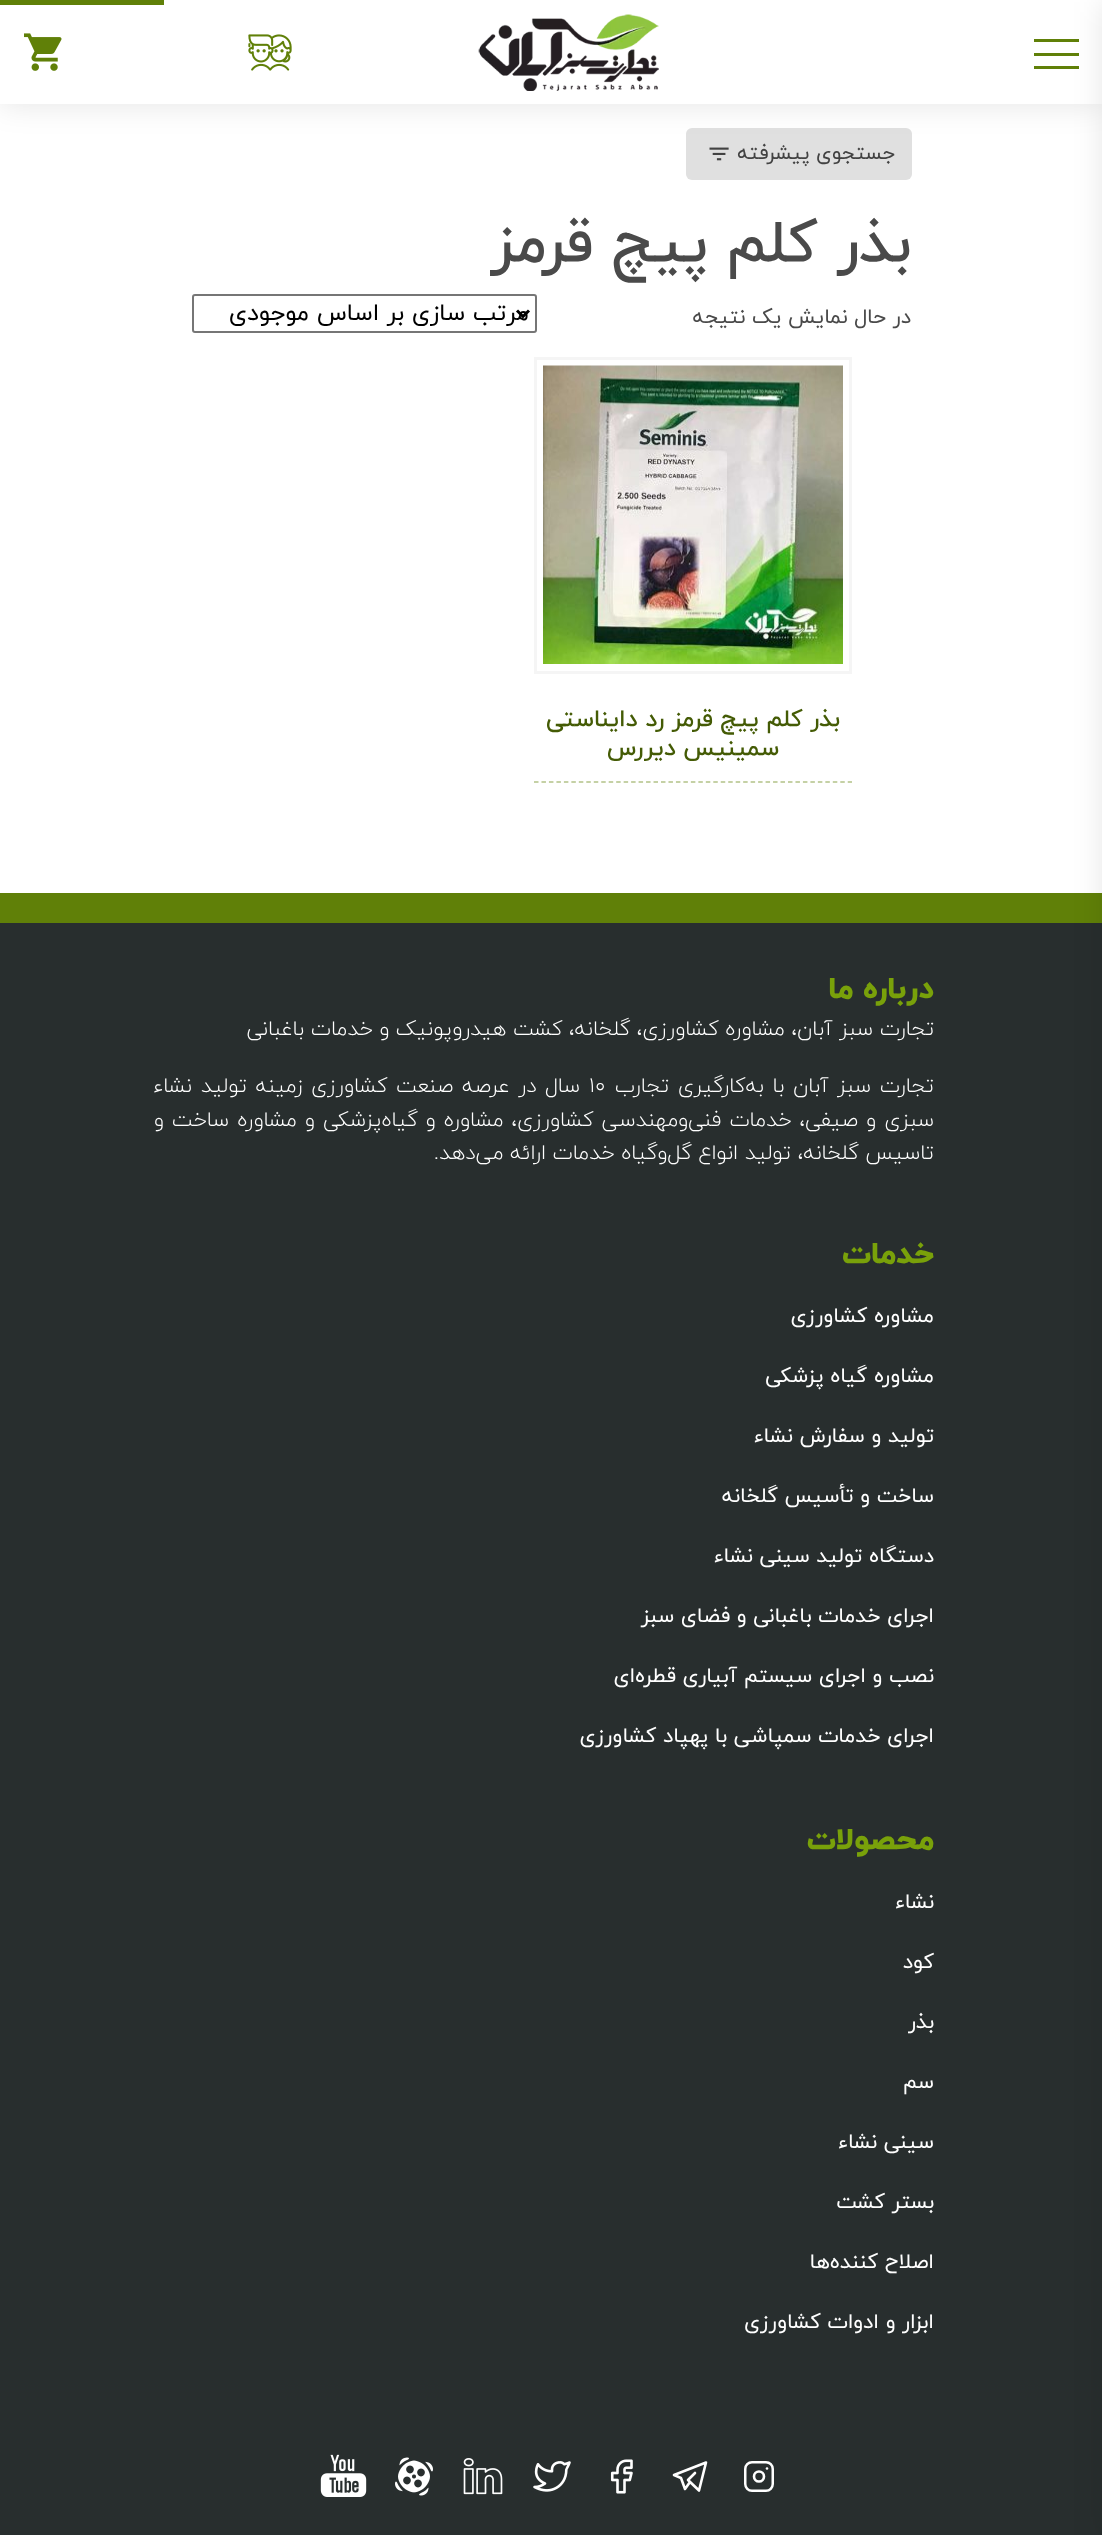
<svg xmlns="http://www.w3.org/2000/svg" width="1102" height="2535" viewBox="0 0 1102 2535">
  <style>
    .t1 { font: 20.5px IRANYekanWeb; direction: rtl; fill: #424242; }
    .t2 { font: 500 60px IRANYekanWeb; direction: rtl; fill: #4a4a4a; }
    .t3 { font: 21px IRANYekanWeb; direction: rtl; fill: #4a4a4a; }
    .t4 { font: 24px IRANYekanWeb; direction: rtl; fill: #000; }
    .t5 { font: 500 24px IRANYekanWeb; direction: rtl; fill: #445b05; }
    .t6 { font: 800 31px IRANYekanWeb; direction: rtl; fill: #79a10a; }
    .t7 { font: 300 21px IRANYekanWeb; direction: rtl; fill: #fff; }
    .t8 { font: 300 21px IRANYekanWeb; fill: #fff; }
    .t9 { font: 21px IRANYekanWeb; direction: rtl; fill: #fff; }
  </style>
  <rect width="100%" height="100%" fill="#fff"/>
  <rect x="686" y="128" width="226" height="52" rx="6" fill="#e0e0e0"/>
  <image x="709" y="147" width="20" height="14" href="images/4.png"/>
  <rect x="0" y="2" width="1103" height="103" fill="#0000001a" filter="blur(15px)"/>
  <rect x="0" y="0" width="1102" height="104" fill="#fff"/>
  <rect x="1034" y="53" width="45" height="3" fill="#608008"/>
  <rect x="1034" y="39" width="45" height="3" fill="#608008"/>
  <rect x="1034" y="66" width="45" height="3" fill="#608008"/>
  <rect x="0" y="923" width="1102" height="1612" fill="#282e2e"/>
  <rect x="0" y="893" width="1102" height="30" fill="#608008"/>
  <rect x="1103" y="2" width="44" height="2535" fill="#0000001a" filter="blur(15px)"/>
  <image x="478" y="14" width="181" height="77" href="images/1.png"/>
  <image x="248" y="34" width="44" height="37" href="images/2.png"/>
  <image x="24" y="33" width="38" height="38" href="images/3.png"/>
  <rect x="0" y="0" width="164" height="5" fill="#608008"/>
  <text x="895" y="159" class="t1">جستجوی پیشرفته</text>
  <text x="911" y="261" class="t2">بذر کلم پیچ قرمز</text>
  <text x="911" y="323" class="t3">در حال نمایش یک نتیجه</text>
  <rect x="193" y="295" width="343" height="37" rx="2" fill="none" stroke="#767676" stroke-width="2"/>
  <path d="M517 310.5L523 316.5L529 310.5" fill="none" stroke="#000" stroke-width="3"/>
  <text x="529" y="320" class="t4">مرتب سازی بر اساس موجودی</text>
  <path d="M534 782H852" fill="none" stroke="#b3c288" stroke-width="1.5" stroke-dasharray="4.5 2.97"/>
  <rect x="535.5" y="358.5" width="315" height="314" fill="none" stroke="#f5f5f5" stroke-width="3"/>
  <image x="543" y="365" width="300" height="299" href="images/5.png"/>
  <text x="840" y="726" class="t5">بذر کلم پیچ قرمز رد دایناستی</text>
  <text x="779" y="755" class="t5">سمینیس دیررس</text>
  <text x="934" y="998" class="t6">درباره ما</text>
  <text x="934" y="1035" class="t7">تجارت سبز آبان، مشاوره کشاورزی، گلخانه، کشت هیدروپونیک و خدمات باغبانی</text>
  <text x="934" y="1092" word-spacing="2" class="t7">تجارت سبز آبان با به‌کارگیری تجارب</text>
  <text x="589" y="1092" class="t8">۱۰</text>
  <text x="580" y="1092" word-spacing="2" class="t7">سال در عرصه صنعت کشاورزی زمینه تولید نشاء</text>
  <text x="934" y="1126" word-spacing="1.5" class="t7">سبزی و صیفی، خدمات فنی‌و‌مهندسی کشاورزی، مشاوره و گیاه‌پزشکی و مشاوره ساخت و</text>
  <text x="934" y="1159" class="t7">تاسیس گلخانه، تولید انواع گل‌وگیاه خدمات ارائه می‌دهد.</text>
  <text x="934" y="1263" class="t6">خدمات</text>
  <text x="934" y="1322" class="t9">مشاوره کشاورزی</text>
  <text x="934" y="1382" class="t9">مشاوره گیاه پزشکی</text>
  <text x="934" y="1442" class="t9">تولید و سفارش نشاء</text>
  <text x="934" y="1502" class="t9">ساخت و تأسیس گلخانه</text>
  <text x="934" y="1562" class="t9">دستگاه تولید سینی نشاء</text>
  <text x="934" y="1622" class="t9">اجرای خدمات باغبانی و فضای سبز</text>
  <text x="934" y="1682" class="t9">نصب و اجرای سیستم آبیاری قطره‌ای</text>
  <text x="934" y="1742" class="t9">اجرای خدمات سمپاشی با پهپاد کشاورزی</text>
  <text x="934" y="1849" class="t6">محصولات</text>
  <text x="934" y="1908" class="t9">نشاء</text>
  <text x="934" y="1968" class="t9">کود</text>
  <text x="934" y="2028" class="t9">بذر</text>
  <text x="934" y="2088" class="t9">سم</text>
  <text x="934" y="2148" class="t9">سینی نشاء</text>
  <text x="934" y="2208" class="t9">بستر کشت</text>
  <text x="934" y="2268" class="t9">اصلاح کننده‌ها</text>
  <text x="934" y="2328" class="t9">ابزار و ادوات کشاورزی</text>
  <rect x="745.25" y="2462.25" width="27.5" height="28.5" rx="6.75" fill="none" stroke="#fff" stroke-width="2.5"/>
  <path d="M767 2468.5H767" fill="none" stroke="#fff" stroke-width="2.6" stroke-linecap="round" stroke-linejoin="round"/>
  <circle cx="759" cy="2476.5" r="5" fill="none" stroke="#fff" stroke-width="2.6"/>
  <path d="M695 2473L688 2480L699 2490.5L706 2462.5L674 2475L681 2478L685 2489L690 2482" fill="none" stroke="#fff" stroke-width="2.6" stroke-linecap="round" stroke-linejoin="round"/>
  <image x="610" y="2459" width="23" height="35" href="images/6.png"/>
  <image x="533" y="2461" width="38" height="31" href="images/7.png"/>
  <image x="463" y="2458" width="40" height="37" href="images/8.png"/>
  <image x="395" y="2457" width="38" height="39" href="images/9.png"/>
  <image x="320" y="2454" width="47" height="43" href="images/10.png"/>
</svg>
